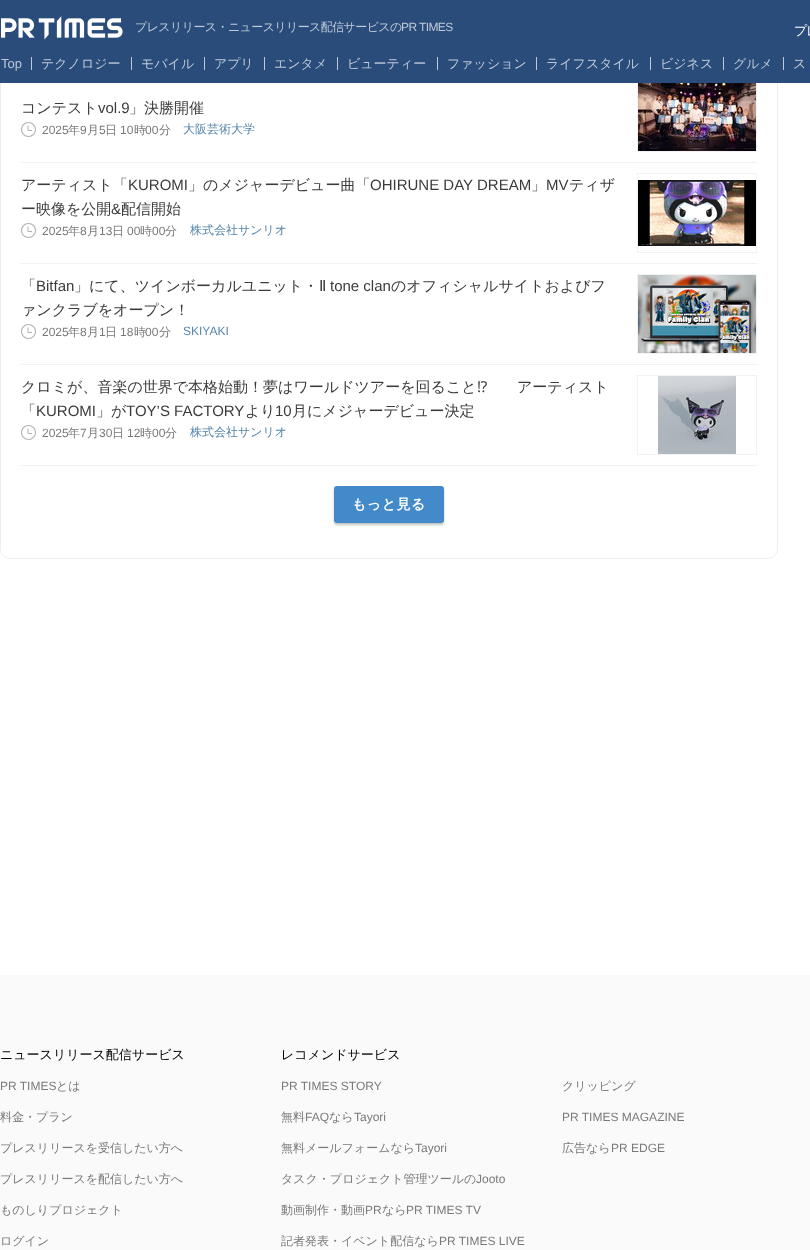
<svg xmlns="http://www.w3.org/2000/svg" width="810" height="1250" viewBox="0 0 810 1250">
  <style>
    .t1 { font: 500 12px WenQuanYi Zen Hei; letter-spacing: -0.6px; fill: #bfc9d7; }
    .t2 { font: 12px Liberation Sans; letter-spacing: -0.6px; fill: #bfc9d7; }
    .t3 { font: 500 13px WenQuanYi Zen Hei; letter-spacing: -1px; fill: #fff; }
    .t4 { font: 13px Liberation Sans; fill: #bfc9d7; }
    .t5 { font: 500 13px WenQuanYi Zen Hei; fill: #bfc9d7; }
    .t6 { font: 500 15px WenQuanYi Zen Hei; fill: #3b3b3b; }
    .t7 { font: 15px Liberation Sans; fill: #3b3b3b; }
    .t8 { font: 12px Liberation Sans; fill: #797979; }
    .t9 { font: 500 12px WenQuanYi Zen Hei; fill: #797979; }
    .t10 { font: 500 12px WenQuanYi Zen Hei; fill: #5686ab; }
    .t11 { font: 15px DejaVu Sans; fill: #3b3b3b; }
    .t12 { font: 12px Liberation Sans; fill: #5686ab; }
    .t13 { font: 15px Noto Sans; fill: #3b3b3b; }
    .t14 { font: bold 14px WenQuanYi Zen Hei; letter-spacing: 0.5px; fill: #fff; }
    .t15 { font: 500 13px WenQuanYi Zen Hei; fill: #000; }
  </style>
  <rect width="100%" height="100%" fill="#fff"/>
  <path d="M.5-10.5H777.5V549C777.5 554 773 558.5 768 558.5H10C5 558.5 .5 554 .5 549Z" fill="none" stroke="#ededed"/>
  <image x="638" y="83" width="118" height="68" href="images/2.png"/>
  <rect x="637.5" y="72.5" width="119" height="79" fill="none" stroke="#f2f2f2"/>
  <rect x="0" y="0" width="810" height="83" fill="#294c7a"/>
  <image x="1" y="16" width="122" height="24" href="images/1.png"/>
  <text x="135" y="31" class="t1">プレスリリース・ニュースリリース配信サービスの</text>
  <text x="401" y="31" class="t2">PR TIMES</text>
  <text x="794" y="35" class="t3">プレ</text>
  <text x="1" y="68" class="t4">Top</text>
  <rect x="31" y="57" width="1" height="13" fill="#bfc9d7"/>
  <text x="41" y="68" class="t5">テクノロジー</text>
  <rect x="131" y="57" width="1" height="13" fill="#bfc9d7"/>
  <text x="141" y="68" class="t5">モバイル</text>
  <rect x="204" y="57" width="1" height="13" fill="#bfc9d7"/>
  <text x="214" y="68" class="t5">アプリ</text>
  <rect x="264" y="57" width="1" height="13" fill="#bfc9d7"/>
  <text x="274" y="68" class="t5">エンタメ</text>
  <rect x="337" y="57" width="1" height="13" fill="#bfc9d7"/>
  <text x="347" y="68" class="t5">ビューティー</text>
  <rect x="437" y="57" width="1" height="13" fill="#bfc9d7"/>
  <text x="447" y="68" class="t5">ファッション</text>
  <rect x="536" y="57" width="1" height="13" fill="#bfc9d7"/>
  <text x="546" y="68" class="t5">ライフスタイル</text>
  <rect x="650" y="57" width="1" height="13" fill="#bfc9d7"/>
  <text x="660" y="68" class="t5">ビジネス</text>
  <rect x="723" y="57" width="1" height="13" fill="#bfc9d7"/>
  <text x="733" y="68" class="t5">グルメ</text>
  <rect x="783" y="57" width="1" height="13" fill="#bfc9d7"/>
  <text x="793" y="68" class="t5">ス</text>
  <text x="21" y="113" class="t6">コンテスト</text>
  <text x="98" y="113" class="t7">vol.9</text>
  <text x="129" y="113" class="t6">」決勝開催</text>
  <image x="21" y="122" width="15" height="15" href="images/3.png"/>
  <text x="42" y="134" class="t8">2025</text>
  <text x="68" y="134" class="t9">年</text>
  <text x="80" y="134" class="t8">9</text>
  <text x="87" y="134" class="t9">月</text>
  <text x="99" y="134" class="t8">5</text>
  <text x="105" y="134" class="t9">日</text>
  <text x="120" y="134" class="t8">10</text>
  <text x="134" y="134" class="t9">時</text>
  <text x="145" y="134" class="t8">00</text>
  <text x="159" y="134" class="t9">分</text>
  <text x="183" y="133" class="t10">大阪芸術大学</text>
  <rect x="21" y="162" width="736" height="1" fill="#f2f2f2"/>
  <text x="21" y="190" class="t6">アーティスト「</text>
  <text x="128" y="190" class="t7">KUROMI</text>
  <text x="188" y="190" class="t6">」のメジャーデビュー曲「</text>
  <text x="370" y="190" class="t7">OHIRUNE DAY DREAM</text>
  <text x="531" y="190" class="t6">」</text>
  <text x="546" y="190" class="t7">MV</text>
  <text x="569" y="190" class="t6">ティザ</text>
  <text x="21" y="214" class="t6">ー映像を公開</text>
  <text x="111" y="214" class="t7">&amp;</text>
  <text x="121" y="214" class="t6">配信開始</text>
  <image x="638" y="180" width="118" height="66" href="images/4.png"/>
  <rect x="637.5" y="173.5" width="119" height="79" fill="none" stroke="#f2f2f2"/>
  <image x="21" y="223" width="15" height="15" href="images/3.png"/>
  <text x="42" y="235" class="t8">2025</text>
  <text x="68" y="235" class="t9">年</text>
  <text x="80" y="235" class="t8">8</text>
  <text x="87" y="235" class="t9">月</text>
  <text x="99" y="235" class="t8">13</text>
  <text x="112" y="235" class="t9">日</text>
  <text x="127" y="235" class="t8">00</text>
  <text x="140" y="235" class="t9">時</text>
  <text x="152" y="235" class="t8">00</text>
  <text x="165" y="235" class="t9">分</text>
  <text x="190" y="234" class="t10">株式会社サンリオ</text>
  <rect x="21" y="263" width="736" height="1" fill="#f2f2f2"/>
  <text x="21" y="291" class="t6">「</text>
  <text x="36" y="291" class="t7">Bitfan</text>
  <text x="74" y="291" class="t6">」にて、ツインボーカルユニット・</text>
  <text x="319" y="291" class="t11">Ⅱ</text>
  <text x="330" y="291" class="t7">tone clan</text>
  <text x="391" y="291" class="t6">のオフィシャルサイトおよびフ</text>
  <text x="21" y="315" class="t6">ァンクラブをオープン！</text>
  <image x="638" y="275" width="118" height="78" href="images/5.png"/>
  <rect x="637.5" y="274.5" width="119" height="79" fill="none" stroke="#f2f2f2"/>
  <image x="21" y="324" width="15" height="15" href="images/6.png"/>
  <text x="42" y="336" class="t8">2025</text>
  <text x="68" y="336" class="t9">年</text>
  <text x="80" y="336" class="t8">8</text>
  <text x="87" y="336" class="t9">月</text>
  <text x="99" y="336" class="t8">1</text>
  <text x="105" y="336" class="t9">日</text>
  <text x="120" y="336" class="t8">18</text>
  <text x="134" y="336" class="t9">時</text>
  <text x="145" y="336" class="t8">00</text>
  <text x="159" y="336" class="t9">分</text>
  <text x="183" y="335" class="t12">SKIYAKI</text>
  <rect x="21" y="364" width="736" height="1" fill="#f2f2f2"/>
  <rect x="21" y="465" width="736" height="1" fill="#f2f2f2"/>
  <text x="21" y="392" class="t6">クロミが、音楽の世界で本格始動！夢はワールドツアーを回ること</text>
  <text x="477" y="392" class="t13">⁉︎</text>
  <text x="517" y="392" class="t6">アーティスト</text>
  <text x="21" y="416" class="t6">「</text>
  <text x="36" y="416" class="t7">KUROMI</text>
  <text x="96" y="416" class="t6">」が</text>
  <text x="126" y="416" class="t7">TOY’S FACTORY</text>
  <text x="245" y="416" class="t6">より</text>
  <text x="275" y="416" class="t7">10</text>
  <text x="292" y="416" class="t6">月にメジャーデビュー決定</text>
  <image x="658" y="376" width="78" height="78" href="images/7.png"/>
  <rect x="637.5" y="375.5" width="119" height="79" fill="none" stroke="#f2f2f2"/>
  <image x="21" y="425" width="15" height="15" href="images/3.png"/>
  <text x="42" y="437" class="t8">2025</text>
  <text x="68" y="437" class="t9">年</text>
  <text x="80" y="437" class="t8">7</text>
  <text x="87" y="437" class="t9">月</text>
  <text x="99" y="437" class="t8">30</text>
  <text x="112" y="437" class="t9">日</text>
  <text x="127" y="437" class="t8">12</text>
  <text x="140" y="437" class="t9">時</text>
  <text x="152" y="437" class="t8">00</text>
  <text x="165" y="437" class="t9">分</text>
  <text x="190" y="436" class="t10">株式会社サンリオ</text>
  <rect x="334" y="488" width="110" height="37" rx="3" fill="#0000003d" filter="blur(1px)"/>
  <rect x="334" y="486" width="110" height="37" rx="3" fill="#428ac9"/>
  <text x="352" y="509" class="t14">もっと見る</text>
  <rect x="0" y="975" width="810" height="275" fill="#fafafa"/>
  <text x="0" y="1059" class="t15">ニュースリリース配信サービス</text>
  <text x="0" y="1090" class="t8">PR TIMES</text>
  <text x="56" y="1090" class="t9">とは</text>
  <text x="0" y="1121" class="t9">料金・プラン</text>
  <text x="0" y="1152" class="t9">プレスリリースを受信したい方へ</text>
  <text x="0" y="1183" class="t9">プレスリリースを配信したい方へ</text>
  <text x="0" y="1214" class="t9">ものしりプロジェクト</text>
  <text x="0" y="1245" class="t9">ログイン</text>
  <text x="281" y="1059" class="t15">レコメンドサービス</text>
  <text x="281" y="1090" class="t8">PR TIMES STORY</text>
  <text x="281" y="1121" class="t9">無料</text>
  <text x="305" y="1121" class="t8">FAQ</text>
  <text x="329" y="1121" class="t9">なら</text>
  <text x="354" y="1121" class="t8">Tayori</text>
  <text x="281" y="1152" class="t9">無料メールフォームなら</text>
  <text x="415" y="1152" class="t8">Tayori</text>
  <text x="281" y="1183" class="t9">タスク・プロジェクト管理ツールの</text>
  <text x="476" y="1183" class="t8">Jooto</text>
  <text x="281" y="1214" class="t9">動画制作・動画</text>
  <text x="365" y="1214" class="t8">PR</text>
  <text x="382" y="1214" class="t9">なら</text>
  <text x="406" y="1214" class="t8">PR TIMES TV</text>
  <text x="281" y="1245" class="t9">記者発表・イベント配信なら</text>
  <text x="439" y="1245" class="t8">PR TIMES LIVE</text>
  <text x="562" y="1090" class="t9">クリッピング</text>
  <text x="562" y="1121" class="t8">PR TIMES MAGAZINE</text>
  <text x="562" y="1152" class="t9">広告なら</text>
  <text x="611" y="1152" class="t8">PR EDGE</text>
</svg>
